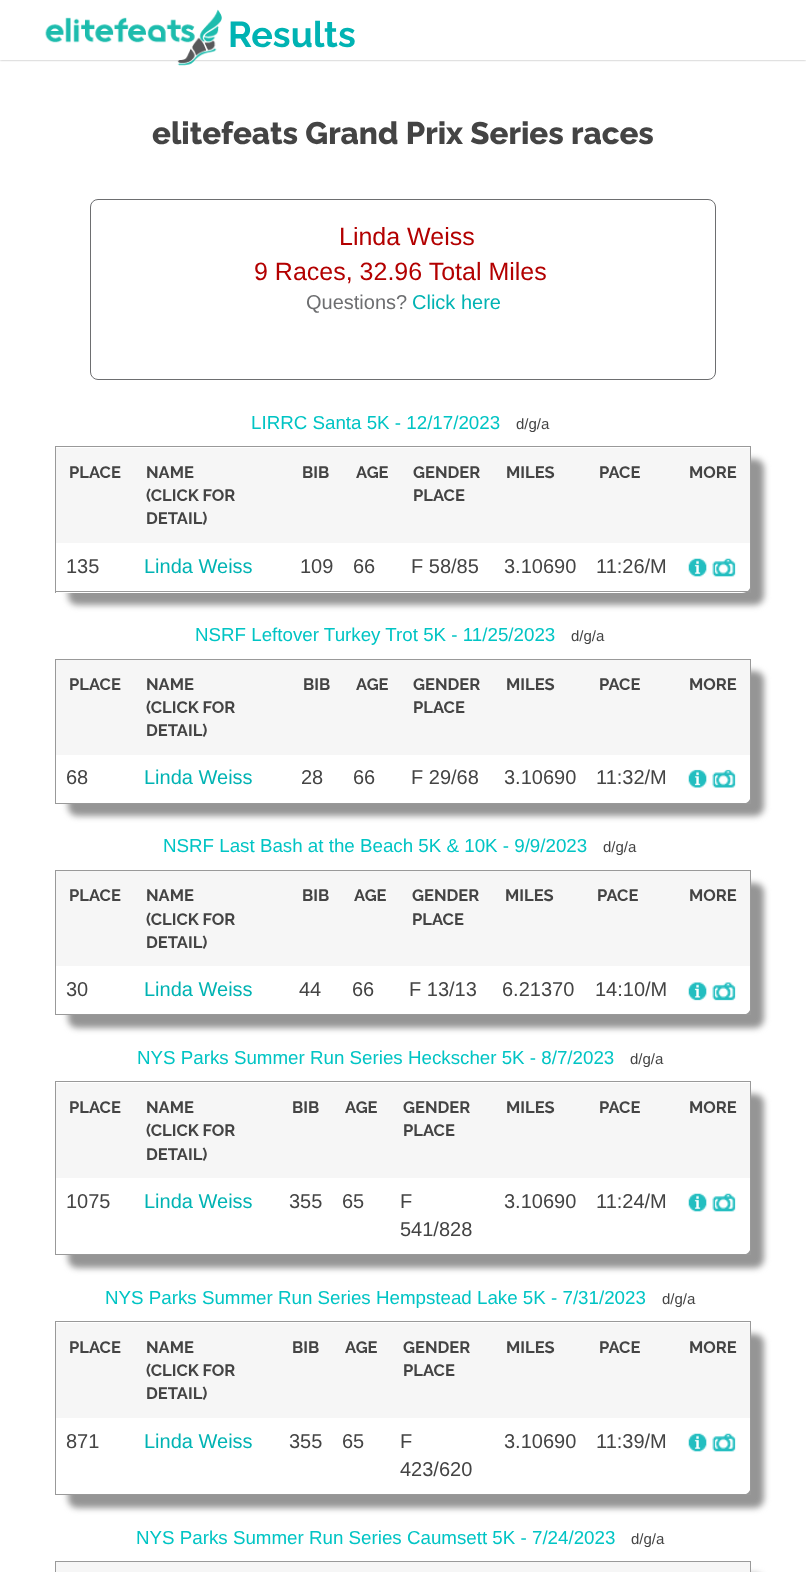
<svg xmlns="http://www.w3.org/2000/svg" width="806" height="1572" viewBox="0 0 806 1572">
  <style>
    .t1 { font: bold 36px Raleway; fill: #00b3b3; }
    .t2 { font: 800 31.25px Raleway; fill: #444; }
    .t3 { font: 25px Liberation Sans; fill: #b30000; }
    .t4 { font: 20px Liberation Sans; fill: #6d6e70; }
    .t5 { font: 20px Liberation Sans; fill: #00b3b3; }
    .t6 { font: 18.75px Liberation Sans; fill: #00c4c4; }
    .t7 { font: 15px Liberation Sans; fill: #444; }
    .t8 { font: bold 16.5px Raleway; fill: #444; }
    .t9 { font: 20px Liberation Sans; fill: #444; }
  </style>
  <defs>
    <clipPath id="clip1"><rect x="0" y="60" width="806" height="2"/></clipPath>
    <clipPath id="clip2"><path d="M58 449H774V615H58ZM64 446H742C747 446 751 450 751 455V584C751 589 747 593 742 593H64C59 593 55 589 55 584V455C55 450 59 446 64 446Z" clip-rule="evenodd"/></clipPath>
    <clipPath id="clip3"><path d="M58 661H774V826H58ZM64 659H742C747 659 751 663 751 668V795C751 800 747 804 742 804H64C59 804 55 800 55 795V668C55 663 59 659 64 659Z" clip-rule="evenodd"/></clipPath>
    <clipPath id="clip4"><path d="M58 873H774V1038H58ZM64 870H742C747 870 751 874 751 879V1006C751 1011 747 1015 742 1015H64C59 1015 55 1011 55 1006V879C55 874 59 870 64 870Z" clip-rule="evenodd"/></clipPath>
    <clipPath id="clip5"><path d="M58 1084H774V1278H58ZM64 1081H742C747 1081 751 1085 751 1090V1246C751 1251 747 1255 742 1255H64C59 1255 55 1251 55 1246V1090C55 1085 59 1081 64 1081Z" clip-rule="evenodd"/></clipPath>
    <clipPath id="clip6"><path d="M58 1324H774V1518H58ZM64 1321H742C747 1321 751 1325 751 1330V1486C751 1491 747 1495 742 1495H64C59 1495 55 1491 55 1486V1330C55 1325 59 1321 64 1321Z" clip-rule="evenodd"/></clipPath>
  </defs>
  <rect width="100%" height="100%" fill="#fff"/>
  <g clip-path="url(#clip1)">
    <rect x="0" y="0" width="806" height="60" fill="#00000059" filter="blur(1px)"/>
  </g>
  <image x="45" y="9" width="177" height="57" href="images/1.png"/>
  <text x="228" y="47" class="t1">Results</text>
  <text x="152" y="144" class="t2">elitefeats Grand Prix Series races</text>
  <rect x="90.5" y="199.5" width="625" height="180" rx="7.5" fill="none" stroke="#6d6e70"/>
  <text x="339" y="245" class="t3">Linda Weiss</text>
  <text x="254" y="280" class="t3">9 Races, 32.96 Total Miles</text>
  <text x="306" y="309" class="t4">Questions?</text>
  <text x="412" y="309" class="t5">Click here</text>
  <text x="251" y="429" class="t6">LIRRC Santa 5K - 12/17/2023</text>
  <text x="516" y="429" class="t7">d/g/a</text>
  <g clip-path="url(#clip2)">
    <rect x="68" y="459" width="696" height="146" rx="9" fill="#959595" filter="blur(3px)"/>
  </g>
  <rect x="55" y="446" width="696" height="1" fill="#999"/>
  <rect x="750" y="446" width="1" height="147" fill="#999"/>
  <rect x="55" y="591" width="696" height="1" fill="#999"/>
  <rect x="55" y="446" width="1" height="147" fill="#999"/>
  <rect x="56" y="448" width="694" height="95" fill="#f6f6f6"/>
  <text x="69" y="478" class="t8">PLACE</text>
  <text x="146" y="478" class="t8">NAME</text>
  <text x="146" y="501" class="t8">(CLICK FOR</text>
  <text x="146" y="524" class="t8">DETAIL)</text>
  <text x="302" y="478" class="t8">BIB</text>
  <text x="356" y="478" class="t8">AGE</text>
  <text x="413" y="478" class="t8">GENDER</text>
  <text x="413" y="501" class="t8">PLACE</text>
  <text x="506" y="478" class="t8">MILES</text>
  <text x="599" y="478" class="t8">PACE</text>
  <text x="689" y="478" class="t8">MORE</text>
  <text x="66" y="573" class="t9">135</text>
  <text x="144" y="573" class="t5">Linda Weiss</text>
  <text x="300" y="573" class="t9">109</text>
  <text x="353" y="573" class="t9">66</text>
  <text x="411" y="573" class="t9">F 58/85</text>
  <text x="504" y="573" class="t9">3.10690</text>
  <text x="596" y="573" class="t9">11:26/M</text>
  <image x="688" y="558" width="48" height="19" href="images/2.png"/>
  <text x="195" y="641" class="t6">NSRF Leftover Turkey Trot 5K - 11/25/2023</text>
  <text x="571" y="641" class="t7">d/g/a</text>
  <g clip-path="url(#clip3)">
    <rect x="68" y="671" width="696" height="145" rx="9" fill="#959595" filter="blur(3px)"/>
  </g>
  <rect x="55" y="659" width="696" height="1" fill="#999"/>
  <rect x="750" y="659" width="1" height="145" fill="#999"/>
  <rect x="55" y="803" width="696" height="1" fill="#999"/>
  <rect x="55" y="659" width="1" height="145" fill="#999"/>
  <rect x="56" y="660" width="694" height="95" fill="#f6f6f6"/>
  <text x="69" y="690" class="t8">PLACE</text>
  <text x="146" y="690" class="t8">NAME</text>
  <text x="146" y="713" class="t8">(CLICK FOR</text>
  <text x="146" y="736" class="t8">DETAIL)</text>
  <text x="303" y="690" class="t8">BIB</text>
  <text x="356" y="690" class="t8">AGE</text>
  <text x="413" y="690" class="t8">GENDER</text>
  <text x="413" y="713" class="t8">PLACE</text>
  <text x="506" y="690" class="t8">MILES</text>
  <text x="599" y="690" class="t8">PACE</text>
  <text x="689" y="690" class="t8">MORE</text>
  <text x="66" y="784" class="t9">68</text>
  <text x="144" y="784" class="t5">Linda Weiss</text>
  <text x="301" y="784" class="t9">28</text>
  <text x="353" y="784" class="t9">66</text>
  <text x="411" y="784" class="t9">F 29/68</text>
  <text x="504" y="784" class="t9">3.10690</text>
  <text x="596" y="784" class="t9">11:32/M</text>
  <image x="688" y="769" width="48" height="19" href="images/3.png"/>
  <text x="163" y="852" class="t6">NSRF Last Bash at the Beach 5K &amp; 10K - 9/9/2023</text>
  <text x="603" y="852" class="t7">d/g/a</text>
  <g clip-path="url(#clip4)">
    <rect x="68" y="883" width="696" height="145" rx="9" fill="#959595" filter="blur(3px)"/>
  </g>
  <rect x="55" y="870" width="696" height="1" fill="#999"/>
  <rect x="750" y="870" width="1" height="145" fill="#999"/>
  <rect x="55" y="1014" width="696" height="1" fill="#999"/>
  <rect x="55" y="870" width="1" height="145" fill="#999"/>
  <rect x="56" y="871" width="694" height="95" fill="#f6f6f6"/>
  <text x="69" y="901" class="t8">PLACE</text>
  <text x="146" y="901" class="t8">NAME</text>
  <text x="146" y="925" class="t8">(CLICK FOR</text>
  <text x="146" y="948" class="t8">DETAIL)</text>
  <text x="302" y="901" class="t8">BIB</text>
  <text x="354" y="901" class="t8">AGE</text>
  <text x="412" y="901" class="t8">GENDER</text>
  <text x="412" y="925" class="t8">PLACE</text>
  <text x="505" y="901" class="t8">MILES</text>
  <text x="597" y="901" class="t8">PACE</text>
  <text x="689" y="901" class="t8">MORE</text>
  <text x="66" y="996" class="t9">30</text>
  <text x="144" y="996" class="t5">Linda Weiss</text>
  <text x="299" y="996" class="t9">44</text>
  <text x="352" y="996" class="t9">66</text>
  <text x="409" y="996" class="t9">F 13/13</text>
  <text x="502" y="996" class="t9">6.21370</text>
  <text x="595" y="996" class="t9">14:10/M</text>
  <image x="688" y="982" width="48" height="19" href="images/4.png"/>
  <text x="137" y="1064" class="t6">NYS Parks Summer Run Series Heckscher 5K - 8/7/2023</text>
  <text x="630" y="1064" class="t7">d/g/a</text>
  <g clip-path="url(#clip5)">
    <rect x="68" y="1094" width="696" height="174" rx="9" fill="#959595" filter="blur(3px)"/>
  </g>
  <rect x="55" y="1081" width="696" height="1" fill="#999"/>
  <rect x="750" y="1081" width="1" height="174" fill="#999"/>
  <rect x="55" y="1254" width="696" height="1" fill="#999"/>
  <rect x="55" y="1081" width="1" height="174" fill="#999"/>
  <rect x="56" y="1083" width="694" height="95" fill="#f6f6f6"/>
  <text x="69" y="1113" class="t8">PLACE</text>
  <text x="146" y="1113" class="t8">NAME</text>
  <text x="146" y="1136" class="t8">(CLICK FOR</text>
  <text x="146" y="1160" class="t8">DETAIL)</text>
  <text x="292" y="1113" class="t8">BIB</text>
  <text x="345" y="1113" class="t8">AGE</text>
  <text x="403" y="1113" class="t8">GENDER</text>
  <text x="403" y="1136" class="t8">PLACE</text>
  <text x="506" y="1113" class="t8">MILES</text>
  <text x="599" y="1113" class="t8">PACE</text>
  <text x="689" y="1113" class="t8">MORE</text>
  <text x="66" y="1208" class="t9">1075</text>
  <text x="144" y="1208" class="t5">Linda Weiss</text>
  <text x="289" y="1208" class="t9">355</text>
  <text x="342" y="1208" class="t9">65</text>
  <text x="400" y="1208" class="t9">F</text>
  <text x="400" y="1236" class="t9">541/828</text>
  <text x="504" y="1208" class="t9">3.10690</text>
  <text x="596" y="1208" class="t9">11:24/M</text>
  <image x="688" y="1193" width="48" height="19" href="images/2.png"/>
  <text x="105" y="1304" class="t6">NYS Parks Summer Run Series Hempstead Lake 5K - 7/31/2023</text>
  <text x="662" y="1304" class="t7">d/g/a</text>
  <g clip-path="url(#clip6)">
    <rect x="68" y="1334" width="696" height="174" rx="9" fill="#959595" filter="blur(3px)"/>
  </g>
  <rect x="55" y="1321" width="696" height="1" fill="#999"/>
  <rect x="750" y="1321" width="1" height="174" fill="#999"/>
  <rect x="55" y="1494" width="696" height="1" fill="#999"/>
  <rect x="55" y="1321" width="1" height="174" fill="#999"/>
  <rect x="56" y="1323" width="694" height="95" fill="#f6f6f6"/>
  <text x="69" y="1353" class="t8">PLACE</text>
  <text x="146" y="1353" class="t8">NAME</text>
  <text x="146" y="1376" class="t8">(CLICK FOR</text>
  <text x="146" y="1399" class="t8">DETAIL)</text>
  <text x="292" y="1353" class="t8">BIB</text>
  <text x="345" y="1353" class="t8">AGE</text>
  <text x="403" y="1353" class="t8">GENDER</text>
  <text x="403" y="1376" class="t8">PLACE</text>
  <text x="506" y="1353" class="t8">MILES</text>
  <text x="599" y="1353" class="t8">PACE</text>
  <text x="689" y="1353" class="t8">MORE</text>
  <text x="66" y="1448" class="t9">871</text>
  <text x="144" y="1448" class="t5">Linda Weiss</text>
  <text x="289" y="1448" class="t9">355</text>
  <text x="342" y="1448" class="t9">65</text>
  <text x="400" y="1448" class="t9">F</text>
  <text x="400" y="1476" class="t9">423/620</text>
  <text x="504" y="1448" class="t9">3.10690</text>
  <text x="596" y="1448" class="t9">11:39/M</text>
  <image x="688" y="1433" width="48" height="19" href="images/2.png"/>
  <text x="136" y="1544" class="t6">NYS Parks Summer Run Series Caumsett 5K - 7/24/2023</text>
  <text x="631" y="1544" class="t7">d/g/a</text>
  <rect x="68" y="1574" width="696" height="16" rx="9" fill="#959595" filter="blur(3px)"/>
  <rect x="55" y="1561" width="696" height="1" fill="#999"/>
  <rect x="750" y="1561" width="1" height="11" fill="#999"/>
  <rect x="55" y="1561" width="1" height="11" fill="#999"/>
  <rect x="56" y="1562" width="694" height="10" fill="#f6f6f6"/>
</svg>
